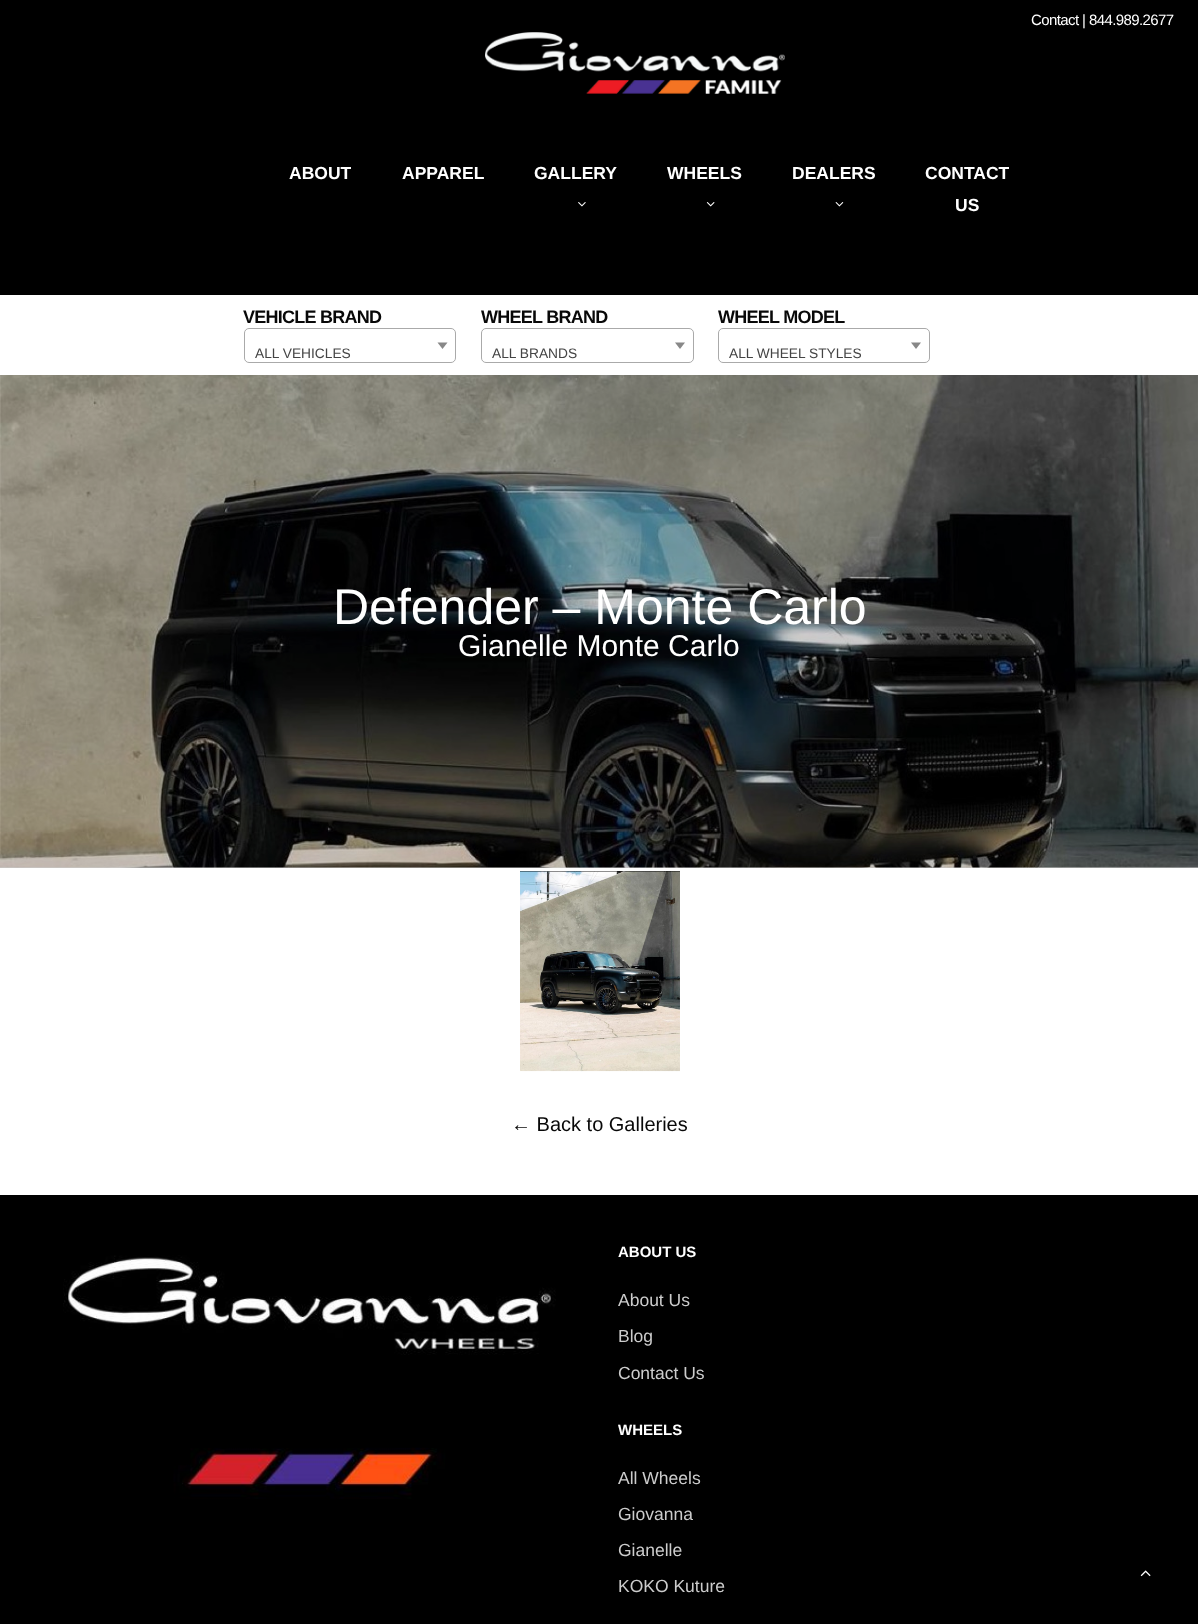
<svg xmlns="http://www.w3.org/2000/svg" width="1198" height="1624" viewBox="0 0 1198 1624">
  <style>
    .t1 { font: 15px Liberation Sans; letter-spacing: -0.6px; fill: #fff; }
    .t2 { font: bold 17.5px Liberation Sans; fill: #fff; }
    .t3 { font: bold 18px Liberation Sans; letter-spacing: -0.75px; fill: #080808; }
    .t4 { font: 13.75px Liberation Sans; fill: #444; }
    .t5 { font: 50px Liberation Sans; fill: #fff; }
    .t6 { font: 30px Liberation Sans; fill: #fff; }
    .t7 { font: 20px Liberation Sans; fill: #080808; }
    .t8 { font: bold 15px Liberation Sans; fill: #fff; }
    .t9 { font: 17.5px Liberation Sans; fill: #ccc; }
  </style>
  <rect width="100%" height="100%" fill="#fff"/>
  <rect x="0" y="867" width="1198" height="1" fill="#ccc"/>
  <rect x="0" y="0" width="1198" height="295" fill="#000"/>
  <text x="1031" y="25" class="t1">Contact | 844.989.2677</text>
  <image x="485" y="32" width="300" height="62" href="images/1.png"/>
  <text x="289" y="179" class="t2">ABOUT</text>
  <text x="402" y="179" class="t2">APPAREL</text>
  <text x="534" y="179" class="t2">GALLERY</text>
  <image x="578" y="202" width="8" height="5" href="images/2.png"/>
  <text x="667" y="179" class="t2">WHEELS</text>
  <image x="706" y="202" width="9" height="5" href="images/3.png"/>
  <text x="792" y="179" class="t2">DEALERS</text>
  <image x="835" y="202" width="9" height="5" href="images/4.png"/>
  <text x="925" y="179" class="t2">CONTACT</text>
  <text x="955" y="211" class="t2">US</text>
  <text x="243" y="323" class="t3">VEHICLE BRAND</text>
  <rect x="244.5" y="328.5" width="211" height="34" rx="4.5" fill="none" stroke="#aaa"/>
  <path d="M437.5 342.5H447.5L442.5 349Z" fill="#888"/>
  <text x="255" y="358" class="t4">ALL VEHICLES</text>
  <text x="481" y="323" class="t3">WHEEL BRAND</text>
  <rect x="481.5" y="328.5" width="212" height="34" rx="4.5" fill="none" stroke="#aaa"/>
  <path d="M675 342.5H685L680 349Z" fill="#888"/>
  <text x="492" y="358" class="t4">ALL BRANDS</text>
  <text x="718" y="323" class="t3">WHEEL MODEL</text>
  <rect x="718.5" y="328.5" width="211" height="34" rx="4.5" fill="none" stroke="#aaa"/>
  <path d="M911 342.5H921L916 349Z" fill="#888"/>
  <text x="729" y="358" class="t4">ALL WHEEL STYLES</text>
  <image x="0" y="375" width="1198" height="493" href="images/5.png"/>
  <text x="333" y="624" class="t5">Defender – Monte Carlo</text>
  <text x="458" y="656" class="t6">Gianelle Monte Carlo</text>
  <rect x="520" y="871" width="160" height="1" fill="#000"/>
  <image x="520" y="871" width="160" height="201" href="images/6.png"/>
  <text x="511" y="1131" class="t7">← Back to Galleries</text>
  <rect x="0" y="1195" width="1198" height="429" fill="#000"/>
  <image x="63" y="1255" width="493" height="244" href="images/7.png"/>
  <text x="618" y="1257" class="t8">ABOUT US</text>
  <text x="618" y="1306" class="t9">About Us</text>
  <text x="618" y="1342" class="t9">Blog</text>
  <text x="618" y="1379" class="t9">Contact Us</text>
  <text x="618" y="1435" class="t8">WHEELS</text>
  <text x="618" y="1484" class="t9">All Wheels</text>
  <text x="618" y="1520" class="t9">Giovanna</text>
  <text x="618" y="1556" class="t9">Gianelle</text>
  <text x="618" y="1592" class="t9">KOKO Kuture</text>
  <image x="1140" y="1570" width="11" height="7" href="images/8.png"/>
</svg>
